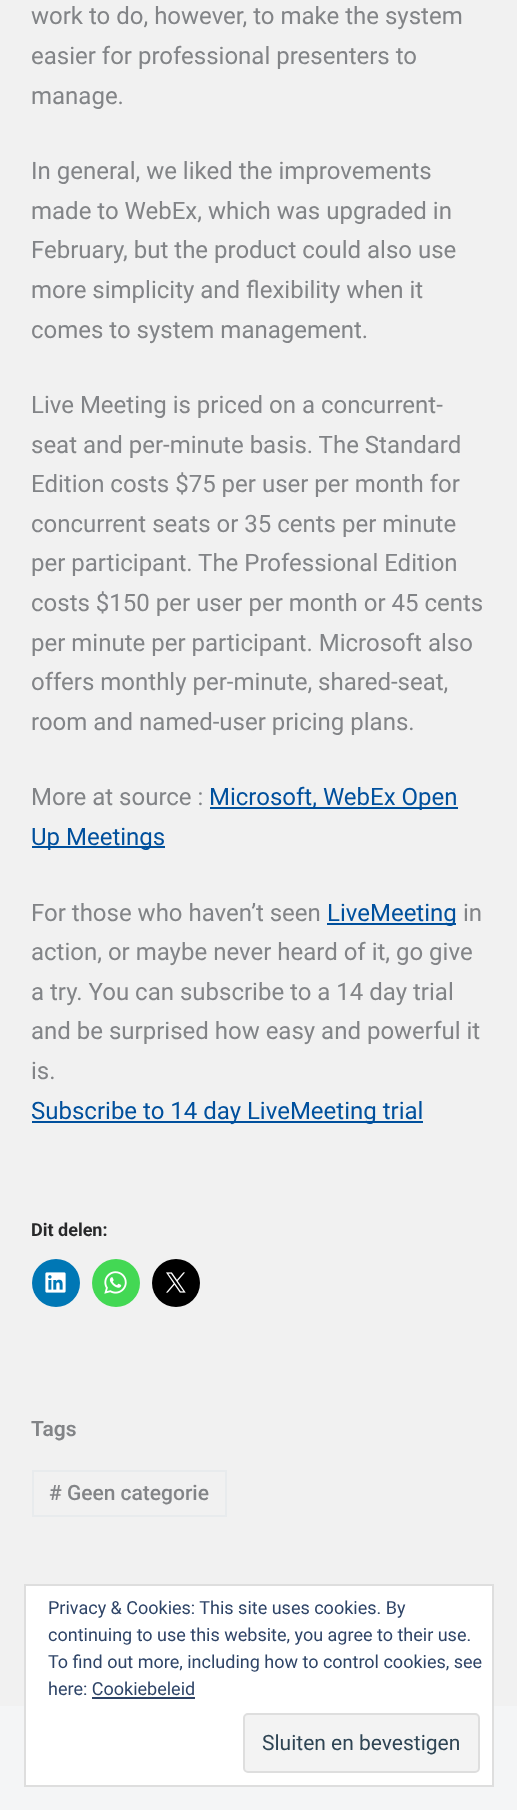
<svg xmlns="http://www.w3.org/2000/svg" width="517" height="1810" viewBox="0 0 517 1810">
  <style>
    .t1 { font: 24px Roboto; fill: #828487; }
    .t2 { font: 24px Roboto; fill: #00509d; }
    .t3 { font: bold 18px Roboto; fill: #28292a; }
    .t4 { font: 600 21px Roboto; fill: #828487; }
    .t5 { font: 500 21px Roboto; fill: #828487; }
    .t6 { font: 18px Roboto; fill: #2e4467; }
    .t7 { font: 21px Roboto; fill: #2e4453; }
  </style>
  <rect width="100%" height="100%" fill="#f1f1f1"/>
  <text x="31" y="24" class="t1">work to do, however, to make the system</text>
  <text x="31" y="64" class="t1">easier for professional presenters to</text>
  <text x="31" y="104" class="t1">manage.</text>
  <text x="31" y="179" class="t1">In general, we liked the improvements</text>
  <text x="31" y="219" class="t1">made to WebEx, which was upgraded in</text>
  <text x="31" y="258" class="t1">February, but the product could also use</text>
  <text x="31" y="298" class="t1">more simplicity and flexibility when it</text>
  <text x="31" y="338" class="t1">comes to system management.</text>
  <text x="31" y="413" class="t1">Live Meeting is priced on a concurrent-</text>
  <text x="31" y="453" class="t1">seat and per-minute basis. The Standard</text>
  <text x="31" y="492" class="t1">Edition costs $75 per user per month for</text>
  <text x="31" y="532" class="t1">concurrent seats or 35 cents per minute</text>
  <text x="31" y="571" class="t1">per participant. The Professional Edition</text>
  <text x="31" y="611" class="t1">costs $150 per user per month or 45 cents</text>
  <text x="31" y="651" class="t1">per minute per participant. Microsoft also</text>
  <text x="31" y="690" class="t1">offers monthly per-minute, shared-seat,</text>
  <text x="31" y="730" class="t1">room and named-user pricing plans.</text>
  <text x="31" y="805" class="t1">More at source :</text>
  <rect x="210" y="807" width="248" height="2" fill="#00509d"/>
  <text x="209" y="805" class="t2">Microsoft, WebEx Open</text>
  <rect x="32" y="846" width="133" height="2" fill="#00509d"/>
  <text x="31" y="845" class="t2">Up Meetings</text>
  <text x="31" y="921" class="t1">For those who haven’t seen</text>
  <rect x="327" y="923" width="129" height="2" fill="#00509d"/>
  <text x="327" y="921" class="t2">LiveMeeting</text>
  <text x="463" y="921" class="t1">in</text>
  <text x="31" y="960" class="t1">action, or maybe never heard of it, go give</text>
  <text x="31" y="1000" class="t1">a try. You can subscribe to a 14 day trial</text>
  <text x="31" y="1039" class="t1">and be surprised how easy and powerful it</text>
  <text x="31" y="1079" class="t1">is.</text>
  <rect x="32" y="1121" width="391" height="2" fill="#00509d"/>
  <text x="31" y="1119" class="t2">Subscribe to 14 day LiveMeeting trial</text>
  <text x="31" y="1236" class="t3">Dit delen:</text>
  <circle cx="56" cy="1283" r="24" fill="#0077b5"/>
  <image x="45" y="1272" width="21" height="21" href="images/1.png"/>
  <circle cx="116" cy="1283" r="24" fill="#43d854"/>
  <image x="104" y="1271" width="23" height="23" href="images/2.png"/>
  <circle cx="176" cy="1283" r="24" fill="#000"/>
  <image x="166" y="1272" width="20" height="21" href="images/3.png"/>
  <text x="31" y="1436" class="t4">Tags</text>
  <rect x="33" y="1471" width="193" height="45" fill="none" stroke="#e8ebed" stroke-width="2"/>
  <text x="49" y="1500" class="t5"># Geen categorie</text>
  <rect x="0" y="1706" width="517" height="104" fill="#f4f5f6"/>
  <rect x="25" y="1585" width="468" height="201" fill="#fff" stroke="#dedede" stroke-width="2"/>
  <text x="48" y="1614" class="t6">Privacy &amp; Cookies: This site uses cookies. By</text>
  <text x="48" y="1641" class="t6">continuing to use this website, you agree to their use.</text>
  <text x="48" y="1668" class="t6">To find out more, including how to control cookies, see</text>
  <text x="48" y="1695" class="t6">here: Cookiebeleid</text>
  <rect x="92" y="1697" width="103" height="2" fill="#2e4467"/>
  <rect x="244" y="1714" width="235" height="58" rx="4" fill="#f3f3f3" stroke="#dedede" stroke-width="2"/>
  <text x="262" y="1750" class="t7">Sluiten en bevestigen</text>
</svg>
